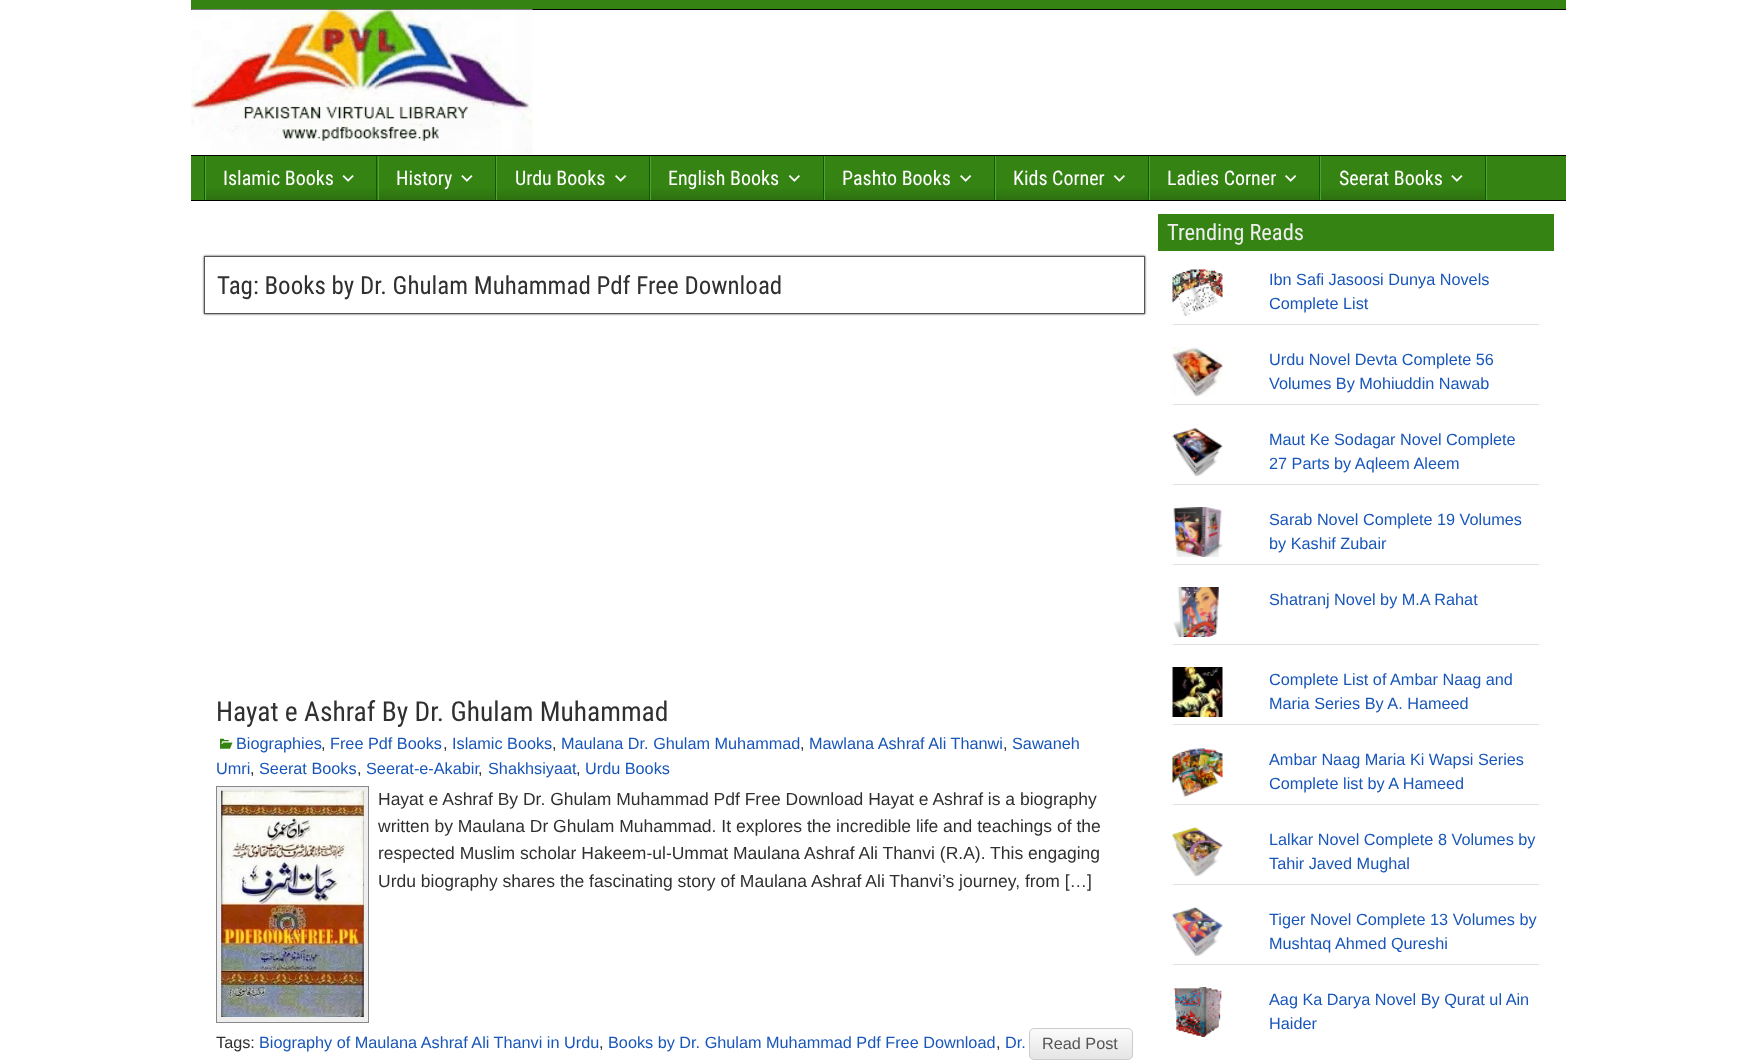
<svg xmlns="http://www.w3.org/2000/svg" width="1756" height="1064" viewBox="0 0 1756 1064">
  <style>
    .t1 { font: 20px Roboto Condensed; fill: #fff; }
    .t2 { font: 25px Roboto Condensed; fill: #303030; }
    .t3 { font: 27.5px Roboto Condensed; fill: #303030; }
    .t4 { font: 16.25px Liberation Sans; fill: #1856ba; }
    .t5 { font: 16.25px Liberation Sans; fill: #303030; }
    .t6 { font: 17.5px Arimo; fill: #303030; }
    .t7 { font: 16.25px Liberation Sans; fill: #555; }
    .t8 { font: 22.5px Roboto Condensed; fill: #eee; }
  </style>
  <defs>
    <linearGradient id="g1" gradientUnits="userSpaceOnUse" x1="291" y1="156" x2="291" y2="200"><stop offset="0.7" stop-color="#358413"/><stop offset="1" stop-color="#2d7010"/></linearGradient>
    <linearGradient id="g2" gradientUnits="userSpaceOnUse" x1="437" y1="156" x2="437" y2="200"><stop offset="0.7" stop-color="#358413"/><stop offset="1" stop-color="#2d7010"/></linearGradient>
    <linearGradient id="g3" gradientUnits="userSpaceOnUse" x1="573" y1="156" x2="573" y2="200"><stop offset="0.7" stop-color="#358413"/><stop offset="1" stop-color="#2d7010"/></linearGradient>
    <linearGradient id="g4" gradientUnits="userSpaceOnUse" x1="737" y1="156" x2="737" y2="200"><stop offset="0.7" stop-color="#358413"/><stop offset="1" stop-color="#2d7010"/></linearGradient>
    <linearGradient id="g5" gradientUnits="userSpaceOnUse" x1="909" y1="156" x2="909" y2="200"><stop offset="0.7" stop-color="#358413"/><stop offset="1" stop-color="#2d7010"/></linearGradient>
    <linearGradient id="g6" gradientUnits="userSpaceOnUse" x1="1072" y1="156" x2="1072" y2="200"><stop offset="0.7" stop-color="#358413"/><stop offset="1" stop-color="#2d7010"/></linearGradient>
    <linearGradient id="g7" gradientUnits="userSpaceOnUse" x1="1234" y1="156" x2="1234" y2="200"><stop offset="0.7" stop-color="#358413"/><stop offset="1" stop-color="#2d7010"/></linearGradient>
    <linearGradient id="g8" gradientUnits="userSpaceOnUse" x1="1403" y1="156" x2="1403" y2="200"><stop offset="0.7" stop-color="#358413"/><stop offset="1" stop-color="#2d7010"/></linearGradient>
    <clipPath id="clip1"><rect x="1029" y="1028" width="104" height="32" rx="5"/></clipPath>
    <linearGradient id="g9" gradientUnits="userSpaceOnUse" x1="1081" y1="1029" x2="1081" y2="1059"><stop offset="0" stop-color="#fbfbfb"/><stop offset="1" stop-color="#e5e5e5"/></linearGradient>
  </defs>
  <rect width="100%" height="100%" fill="#fff"/>
  <rect x="191" y="0" width="1375" height="9" fill="#358413"/>
  <rect x="191" y="9" width="1375" height="1" fill="#000"/>
  <rect x="191" y="155" width="1375" height="1" fill="#000"/>
  <image x="191" y="9" width="342" height="146" href="images/1.png"/>
  <rect x="191" y="156" width="1375" height="44" fill="#358413"/>
  <rect x="191" y="200" width="1375" height="1" fill="#000"/>
  <rect x="1486" y="156" width="1" height="44" fill="#53a231"/>
  <rect x="204" y="156" width="1" height="44" fill="#0d5c00"/>
  <rect x="206" y="188" width="172" height="12" fill="url(#g1)"/>
  <rect x="376" y="156" width="1" height="44" fill="#0d5c00"/>
  <rect x="205" y="156" width="1" height="44" fill="#53a231"/>
  <text x="223" y="185" class="t1">Islamic Books</text>
  <image x="342" y="175" width="12" height="7" href="images/2.png"/>
  <rect x="379" y="188" width="116" height="12" fill="url(#g2)"/>
  <rect x="495" y="156" width="1" height="44" fill="#0d5c00"/>
  <rect x="378" y="156" width="1" height="44" fill="#53a231"/>
  <text x="396" y="185" class="t1">History</text>
  <image x="461" y="175" width="12" height="7" href="images/3.png"/>
  <rect x="497" y="188" width="152" height="12" fill="url(#g3)"/>
  <rect x="649" y="156" width="1" height="44" fill="#0d5c00"/>
  <rect x="496" y="156" width="1" height="44" fill="#53a231"/>
  <text x="515" y="185" class="t1">Urdu Books</text>
  <image x="615" y="175" width="12" height="7" href="images/4.png"/>
  <rect x="651" y="188" width="172" height="12" fill="url(#g4)"/>
  <rect x="823" y="156" width="1" height="44" fill="#0d5c00"/>
  <rect x="650" y="156" width="1" height="44" fill="#53a231"/>
  <text x="668" y="185" class="t1">English Books</text>
  <image x="788" y="175" width="12" height="7" href="images/5.png"/>
  <rect x="825" y="188" width="169" height="12" fill="url(#g5)"/>
  <rect x="994" y="156" width="1" height="44" fill="#0d5c00"/>
  <rect x="824" y="156" width="1" height="44" fill="#53a231"/>
  <text x="842" y="185" class="t1">Pashto Books</text>
  <image x="960" y="175" width="12" height="7" href="images/4.png"/>
  <rect x="996" y="188" width="152" height="12" fill="url(#g6)"/>
  <rect x="1148" y="156" width="1" height="44" fill="#0d5c00"/>
  <rect x="995" y="156" width="1" height="44" fill="#53a231"/>
  <text x="1013" y="185" class="t1">Kids Corner</text>
  <image x="1113" y="175" width="12" height="7" href="images/5.png"/>
  <rect x="1150" y="188" width="169" height="12" fill="url(#g7)"/>
  <rect x="1319" y="156" width="1" height="44" fill="#0d5c00"/>
  <rect x="1149" y="156" width="1" height="44" fill="#53a231"/>
  <text x="1167" y="185" class="t1">Ladies Corner</text>
  <image x="1285" y="175" width="12" height="7" href="images/4.png"/>
  <rect x="1321" y="188" width="164" height="12" fill="url(#g8)"/>
  <rect x="1485" y="156" width="1" height="44" fill="#0d5c00"/>
  <rect x="1320" y="156" width="1" height="44" fill="#53a231"/>
  <text x="1339" y="185" class="t1">Seerat Books</text>
  <image x="1451" y="175" width="12" height="7" href="images/3.png"/>
  <rect x="204" y="256" width="941" height="58" fill="#333" filter="blur(1px)"/>
  <rect x="204.5" y="256.5" width="940" height="57" fill="#fff" stroke="#555"/>
  <text x="217" y="294" class="t2">Tag: Books by Dr. Ghulam Muhammad Pdf Free Download</text>
  <text x="216" y="721" class="t3">Hayat e Ashraf By Dr. Ghulam Muhammad</text>
  <image x="220" y="738" width="13" height="11" href="images/6.png"/>
  <text x="236" y="749" class="t4">Biographies</text>
  <text x="330" y="749" class="t4">Free Pdf Books</text>
  <text x="452" y="749" class="t4">Islamic Books</text>
  <text x="561" y="749" class="t4">Maulana Dr. Ghulam Muhammad</text>
  <text x="809" y="749" class="t4">Mawlana Ashraf Ali Thanwi</text>
  <text x="1012" y="749" class="t4">Sawaneh</text>
  <text x="321" y="749" class="t5">,</text>
  <text x="443" y="749" class="t5">,</text>
  <text x="552" y="749" class="t5">,</text>
  <text x="800" y="749" class="t5">,</text>
  <text x="1003" y="749" class="t5">,</text>
  <text x="216" y="774" class="t4">Umri</text>
  <text x="250" y="774" class="t5">,</text>
  <text x="259" y="774" class="t4">Seerat Books</text>
  <text x="357" y="774" class="t5">,</text>
  <text x="366" y="774" class="t4">Seerat-e-Akabir</text>
  <text x="478" y="774" class="t5">,</text>
  <text x="488" y="774" class="t4">Shakhsiyaat</text>
  <text x="576" y="774" class="t5">,</text>
  <text x="585" y="774" class="t4">Urdu Books</text>
  <rect x="216.5" y="786.5" width="152" height="236" fill="#eee" stroke="#888"/>
  <image x="221" y="790" width="143" height="227" href="images/7.png"/>
  <text x="378" y="805" class="t6">Hayat e Ashraf By Dr. Ghulam Muhammad Pdf Free Download Hayat e Ashraf is a biography</text>
  <text x="378" y="832" class="t6">written by Maulana Dr Ghulam Muhammad. It explores the incredible life and teachings of the</text>
  <text x="378" y="859" class="t6">respected Muslim scholar Hakeem-ul-Ummat Maulana Ashraf Ali Thanvi (R.A). This engaging</text>
  <text x="378" y="887" class="t6">Urdu biography shares the fascinating story of Maulana Ashraf Ali Thanvi’s journey, from […]</text>
  <text x="216" y="1048" class="t5">Tags:</text>
  <text x="259" y="1048" class="t4">Biography of Maulana Ashraf Ali Thanvi in Urdu</text>
  <text x="608" y="1048" class="t4">Books by Dr. Ghulam Muhammad Pdf Free Download</text>
  <text x="1005" y="1048" class="t4">Dr.</text>
  <text x="599" y="1048" class="t5">,</text>
  <text x="996" y="1048" class="t5">,</text>
  <g clip-path="url(#clip1)">
    <rect x="1029" y="1029" width="104" height="30" fill="url(#g9)"/>
  </g>
  <rect x="1029.5" y="1028.5" width="103" height="31" rx="4.5" fill="none" stroke="#ccc"/>
  <text x="1042" y="1049" class="t7">Read Post</text>
  <rect x="1158" y="214" width="396" height="37" fill="#358413"/>
  <text x="1167" y="240" class="t8">Trending Reads</text>
  <rect x="1173" y="324" width="366" height="1" fill="#e0e0e0"/>
  <image x="1172" y="268" width="51" height="48" href="images/8.png"/>
  <text x="1269" y="285" class="t4">Ibn Safi Jasoosi Dunya Novels</text>
  <text x="1269" y="309" class="t4">Complete List</text>
  <rect x="1173" y="404" width="366" height="1" fill="#e0e0e0"/>
  <image x="1172" y="347" width="51" height="50" href="images/9.png"/>
  <text x="1269" y="365" class="t4">Urdu Novel Devta Complete 56</text>
  <text x="1269" y="389" class="t4">Volumes By Mohiuddin Nawab</text>
  <rect x="1173" y="484" width="366" height="1" fill="#e0e0e0"/>
  <image x="1172" y="428" width="51" height="49" href="images/10.png"/>
  <text x="1269" y="445" class="t4">Maut Ke Sodagar Novel Complete</text>
  <text x="1269" y="469" class="t4">27 Parts by Aqleem Aleem</text>
  <rect x="1173" y="564" width="366" height="1" fill="#e0e0e0"/>
  <image x="1173" y="507" width="50" height="50" href="images/11.png"/>
  <text x="1269" y="525" class="t4">Sarab Novel Complete 19 Volumes</text>
  <text x="1269" y="549" class="t4">by Kashif Zubair</text>
  <rect x="1173" y="644" width="366" height="1" fill="#e0e0e0"/>
  <image x="1173" y="587" width="46" height="50" href="images/12.png"/>
  <text x="1269" y="605" class="t4">Shatranj Novel by M.A Rahat</text>
  <rect x="1173" y="724" width="366" height="1" fill="#e0e0e0"/>
  <image x="1172" y="667" width="51" height="50" href="images/13.png"/>
  <text x="1269" y="685" class="t4">Complete List of Ambar Naag and</text>
  <text x="1269" y="709" class="t4">Maria Series By A. Hameed</text>
  <rect x="1173" y="804" width="366" height="1" fill="#e0e0e0"/>
  <image x="1172" y="748" width="51" height="49" href="images/14.png"/>
  <text x="1269" y="765" class="t4">Ambar Naag Maria Ki Wapsi Series</text>
  <text x="1269" y="789" class="t4">Complete list by A Hameed</text>
  <rect x="1173" y="884" width="366" height="1" fill="#e0e0e0"/>
  <image x="1172" y="827" width="51" height="50" href="images/15.png"/>
  <text x="1269" y="845" class="t4">Lalkar Novel Complete 8 Volumes by</text>
  <text x="1269" y="869" class="t4">Tahir Javed Mughal</text>
  <rect x="1173" y="964" width="366" height="1" fill="#e0e0e0"/>
  <image x="1172" y="907" width="51" height="50" href="images/16.png"/>
  <text x="1269" y="925" class="t4">Tiger Novel Complete 13 Volumes by</text>
  <text x="1269" y="949" class="t4">Mushtaq Ahmed Qureshi</text>
  <image x="1173" y="987" width="49" height="50" href="images/17.png"/>
  <text x="1269" y="1005" class="t4">Aag Ka Darya Novel By Qurat ul Ain</text>
  <text x="1269" y="1029" class="t4">Haider</text>
</svg>
